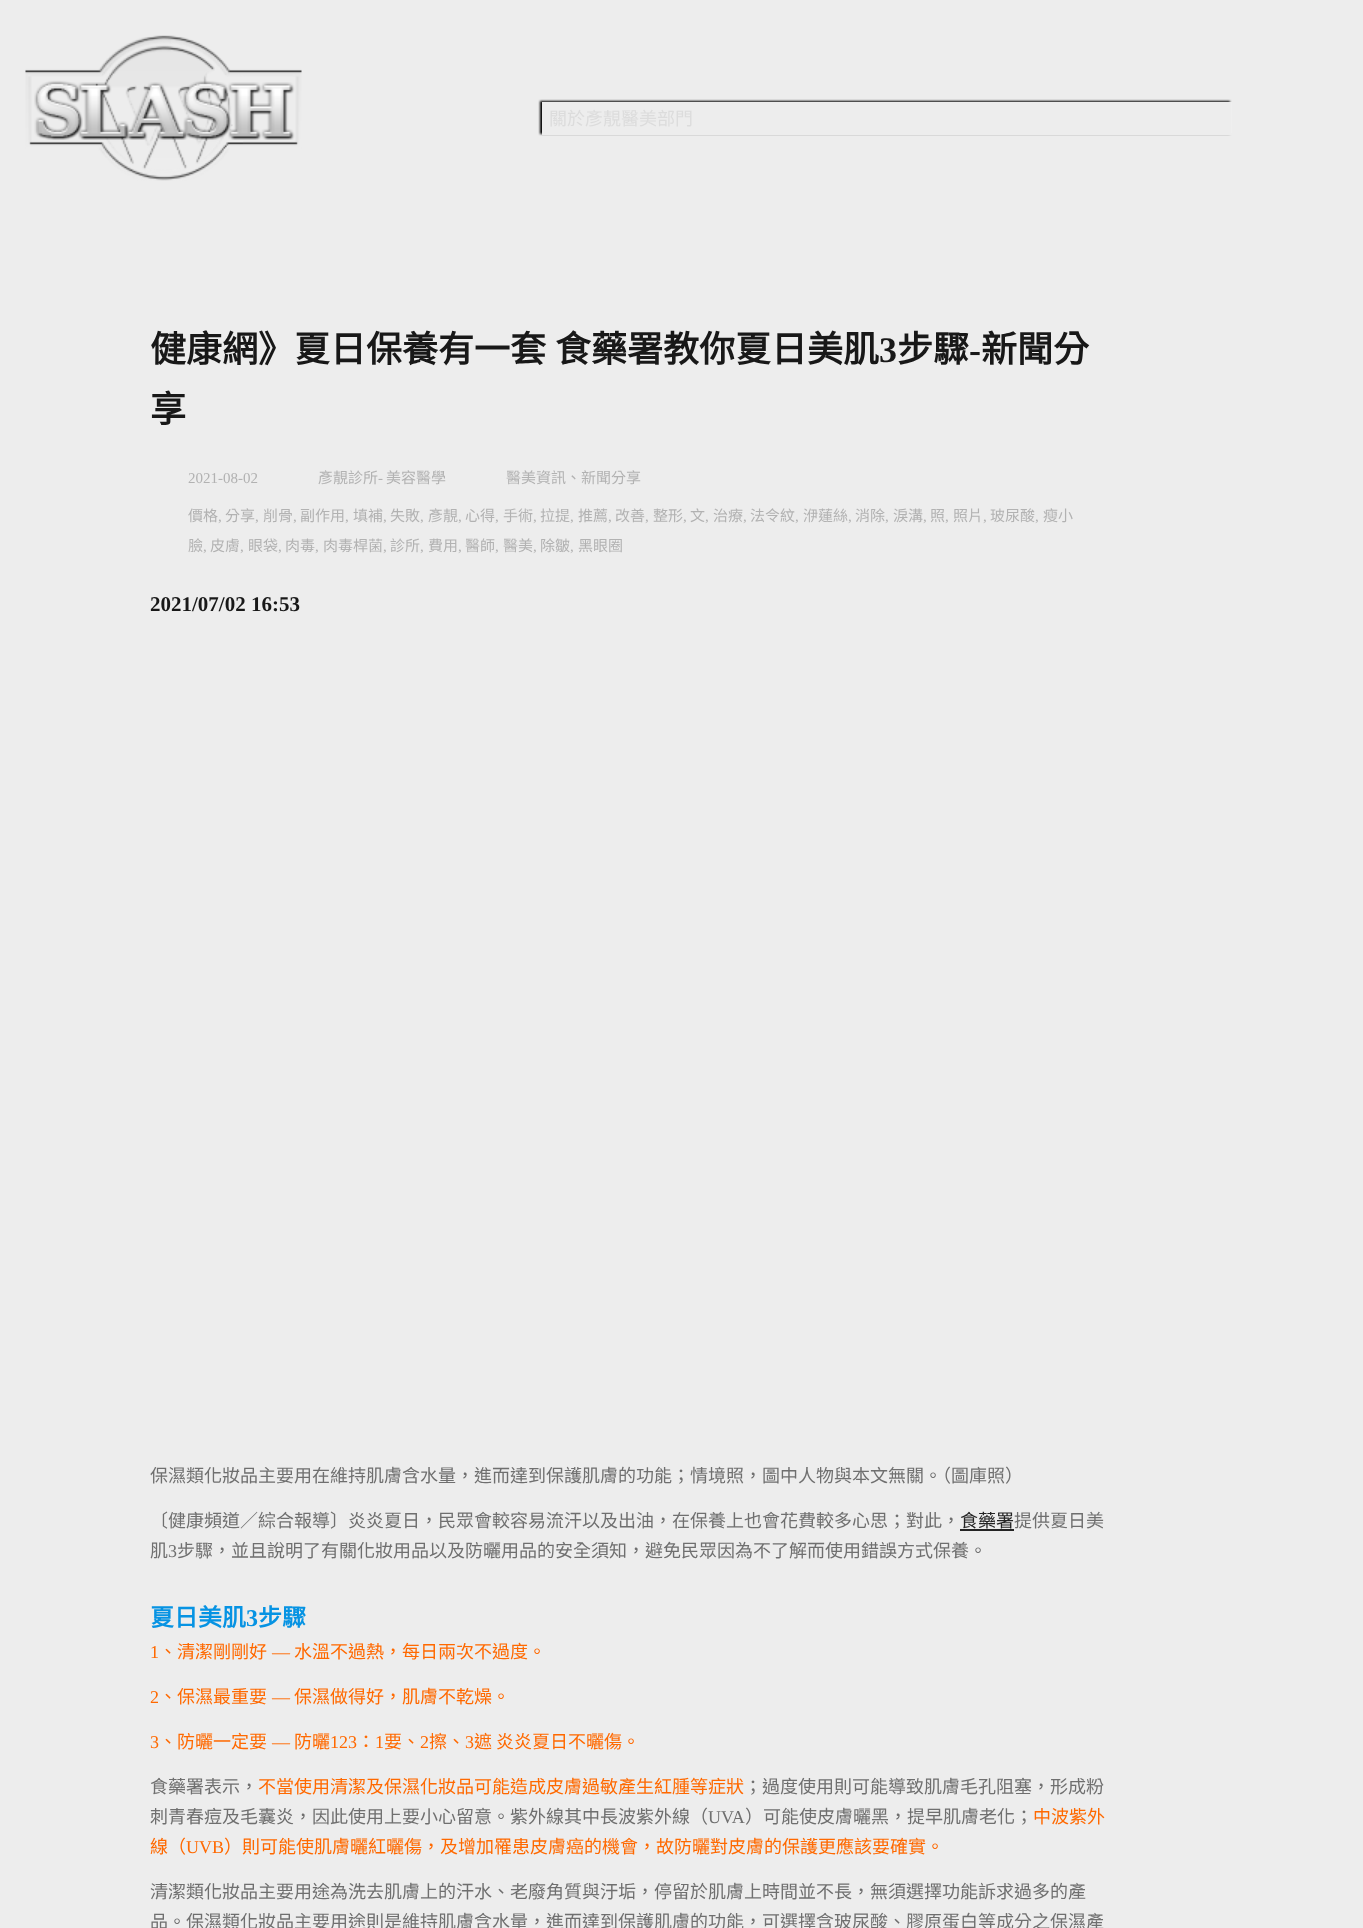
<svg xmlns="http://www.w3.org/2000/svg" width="1363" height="1928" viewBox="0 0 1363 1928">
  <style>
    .t1 { font: 18px Noto Sans CJK TC; fill: #dcdcdc; }
    .t2 { font: bold 36px Noto Sans CJK TC; fill: #181818; }
    .t3 { font: bold 36px Liberation Serif; fill: #181818; }
    .t4 { font: 15px Liberation Serif; fill: #b2b2b2; }
    .t5 { font: 15px Noto Sans CJK TC; fill: #b2b2b2; }
    .t6 { font: bold 21px Liberation Serif; fill: #181818; }
    .t7 { font: 18px Noto Sans CJK TC; fill: #6f6f6f; }
    .t8 { font: 18px Noto Sans CJK TC; fill: #232323; }
    .t9 { font: 18px Liberation Serif; fill: #6f6f6f; }
    .t10 { font: bold 24px Noto Sans CJK TC; fill: #0693e3; }
    .t11 { font: bold 24px Liberation Serif; fill: #0693e3; }
    .t12 { font: 18px Liberation Serif; fill: #ff6900; }
    .t13 { font: 18px Noto Sans CJK TC; fill: #ff6900; }
  </style>
  <defs>
    <clipPath id="clip1"><path d="M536 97H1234V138H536ZM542 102H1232V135H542Z" clip-rule="evenodd"/></clipPath>
  </defs>
  <rect width="100%" height="100%" fill="#ededed"/>
  <image x="25" y="35" width="277" height="146" href="images/1.png"/>
  <g clip-path="url(#clip1)">
    <rect x="540" y="101" width="690" height="33" fill="#000" filter="blur(1px)"/>
  </g>
  <rect x="1231" y="102" width="1" height="31" fill="#ffffff1c"/>
  <text x="549" y="125" class="t1">關於彥靚醫美部門</text>
  <text x="150" y="362" word-spacing="1" class="t2">健康網》夏日保養有一套 食藥署教你夏日美肌</text>
  <text x="879" y="362" class="t3">3</text>
  <text x="897" y="362" class="t2">步驟</text>
  <text x="969" y="362" class="t3">-</text>
  <text x="981" y="362" class="t2">新聞分</text>
  <text x="150" y="422" class="t2">享</text>
  <text x="188" y="483" class="t4">2021-08-02</text>
  <text x="318" y="483" class="t5">彥靚診所</text>
  <text x="378" y="483" class="t4">-</text>
  <text x="386" y="483" class="t5">美容醫學</text>
  <text x="506" y="483" class="t5">醫美資訊、新聞分享</text>
  <text x="188" y="521" class="t5">價格</text>
  <text x="218" y="521" class="t4">,</text>
  <text x="225" y="521" class="t5">分享</text>
  <text x="255" y="521" class="t4">,</text>
  <text x="263" y="521" class="t5">削骨</text>
  <text x="293" y="521" class="t4">,</text>
  <text x="300" y="521" class="t5">副作用</text>
  <text x="345" y="521" class="t4">,</text>
  <text x="353" y="521" class="t5">填補</text>
  <text x="383" y="521" class="t4">,</text>
  <text x="390" y="521" class="t5">失敗</text>
  <text x="420" y="521" class="t4">,</text>
  <text x="428" y="521" class="t5">彥靚</text>
  <text x="458" y="521" class="t4">,</text>
  <text x="465" y="521" class="t5">心得</text>
  <text x="495" y="521" class="t4">,</text>
  <text x="503" y="521" class="t5">手術</text>
  <text x="533" y="521" class="t4">,</text>
  <text x="540" y="521" class="t5">拉提</text>
  <text x="570" y="521" class="t4">,</text>
  <text x="578" y="521" class="t5">推薦</text>
  <text x="608" y="521" class="t4">,</text>
  <text x="615" y="521" class="t5">改善</text>
  <text x="645" y="521" class="t4">,</text>
  <text x="653" y="521" class="t5">整形</text>
  <text x="683" y="521" class="t4">,</text>
  <text x="690" y="521" class="t5">文</text>
  <text x="705" y="521" class="t4">,</text>
  <text x="713" y="521" class="t5">治療</text>
  <text x="743" y="521" class="t4">,</text>
  <text x="750" y="521" class="t5">法令紋</text>
  <text x="795" y="521" class="t4">,</text>
  <text x="803" y="521" class="t5">洢蓮絲</text>
  <text x="848" y="521" class="t4">,</text>
  <text x="855" y="521" class="t5">消除</text>
  <text x="885" y="521" class="t4">,</text>
  <text x="893" y="521" class="t5">淚溝</text>
  <text x="923" y="521" class="t4">,</text>
  <text x="930" y="521" class="t5">照</text>
  <text x="945" y="521" class="t4">,</text>
  <text x="953" y="521" class="t5">照片</text>
  <text x="983" y="521" class="t4">,</text>
  <text x="990" y="521" class="t5">玻尿酸</text>
  <text x="1035" y="521" class="t4">,</text>
  <text x="1043" y="521" class="t5">瘦小</text>
  <text x="188" y="551" class="t5">臉</text>
  <text x="203" y="551" class="t4">,</text>
  <text x="210" y="551" class="t5">皮膚</text>
  <text x="240" y="551" class="t4">,</text>
  <text x="248" y="551" class="t5">眼袋</text>
  <text x="278" y="551" class="t4">,</text>
  <text x="285" y="551" class="t5">肉毒</text>
  <text x="315" y="551" class="t4">,</text>
  <text x="323" y="551" class="t5">肉毒桿菌</text>
  <text x="383" y="551" class="t4">,</text>
  <text x="390" y="551" class="t5">診所</text>
  <text x="420" y="551" class="t4">,</text>
  <text x="428" y="551" class="t5">費用</text>
  <text x="458" y="551" class="t4">,</text>
  <text x="465" y="551" class="t5">醫師</text>
  <text x="495" y="551" class="t4">,</text>
  <text x="503" y="551" class="t5">醫美</text>
  <text x="533" y="551" class="t4">,</text>
  <text x="540" y="551" class="t5">除皺</text>
  <text x="570" y="551" class="t4">,</text>
  <text x="578" y="551" class="t5">黑眼圈</text>
  <text x="150" y="611" class="t6">2021/07/02 16:53</text>
  <text x="150" y="1482" class="t7">保濕類化妝品主要用在維持肌膚含水量，進而達到保護肌膚的功能；情境照，圖中人物與本文無關。（圖庫照）</text>
  <text x="150" y="1527" class="t7">〔健康頻道／綜合報導〕炎炎夏日，民眾會較容易流汗以及出油，在保養上也會花費較多心思；對此，</text>
  <text x="960" y="1527" class="t8">食藥署</text>
  <rect x="960" y="1529" width="54" height="2" fill="#232323"/>
  <text x="1014" y="1527" class="t7">提供夏日美</text>
  <text x="150" y="1557" class="t7">肌</text>
  <text x="168" y="1557" class="t9">3</text>
  <text x="177" y="1557" class="t7">步驟，並且說明了有關化妝用品以及防曬用品的安全須知，避免民眾因為不了解而使用錯誤方式保養。</text>
  <text x="150" y="1626" class="t10">夏日美肌</text>
  <text x="246" y="1626" class="t11">3</text>
  <text x="258" y="1626" class="t10">步驟</text>
  <text x="150" y="1658" class="t12">1</text>
  <text x="159" y="1658" class="t13">、清潔剛剛好</text>
  <text x="272" y="1658" class="t12">—</text>
  <text x="294" y="1658" class="t13">水溫不過熱，每日兩次不過度。</text>
  <text x="150" y="1703" class="t12">2</text>
  <text x="159" y="1703" class="t13">、保濕最重要</text>
  <text x="272" y="1703" class="t12">—</text>
  <text x="294" y="1703" class="t13">保濕做得好，肌膚不乾燥。</text>
  <text x="150" y="1748" class="t12">3</text>
  <text x="159" y="1748" class="t13">、防曬一定要</text>
  <text x="272" y="1748" class="t12">—</text>
  <text x="294" y="1748" class="t13">防曬</text>
  <text x="330" y="1748" class="t12">123</text>
  <text x="357" y="1748" class="t13">：</text>
  <text x="375" y="1748" class="t12">1</text>
  <text x="384" y="1748" class="t13">要、</text>
  <text x="420" y="1748" class="t12">2</text>
  <text x="429" y="1748" class="t13">擦、</text>
  <text x="465" y="1748" class="t12">3</text>
  <text x="474" y="1748" class="t13">遮 炎炎夏日不曬傷。</text>
  <text x="150" y="1793" class="t7">食藥署表示，</text>
  <text x="258" y="1793" class="t13">不當使用清潔及保濕化妝品可能造成皮膚過敏產生紅腫等症狀</text>
  <text x="744" y="1793" class="t7">；過度使用則可能導致肌膚毛孔阻塞，形成粉</text>
  <text x="150" y="1823" class="t7">刺青春痘及毛囊炎，因此使用上要小心留意。紫外線其中長波紫外線（</text>
  <text x="708" y="1823" class="t9">UVA</text>
  <text x="745" y="1823" class="t7">）可能使皮膚曬黑，提早肌膚老化；</text>
  <text x="1033" y="1823" class="t13">中波紫外</text>
  <text x="150" y="1853" class="t13">線（</text>
  <text x="186" y="1853" class="t12">UVB</text>
  <text x="224" y="1853" class="t13">）則可能使肌膚曬紅曬傷，及增加罹患皮膚癌的機會，故防曬對皮膚的保護更應該要確實。</text>
  <text x="150" y="1898" class="t7">清潔類化妝品主要用途為洗去肌膚上的汗水、老廢角質與汙垢，停留於肌膚上時間並不長，無須選擇功能訴求過多的產</text>
  <text x="150" y="1928" class="t7">品。保濕類化妝品主要用途則是維持肌膚含水量，進而達到保護肌膚的功能，可選擇含玻尿酸、膠原蛋白等成分之保濕產</text>
</svg>
